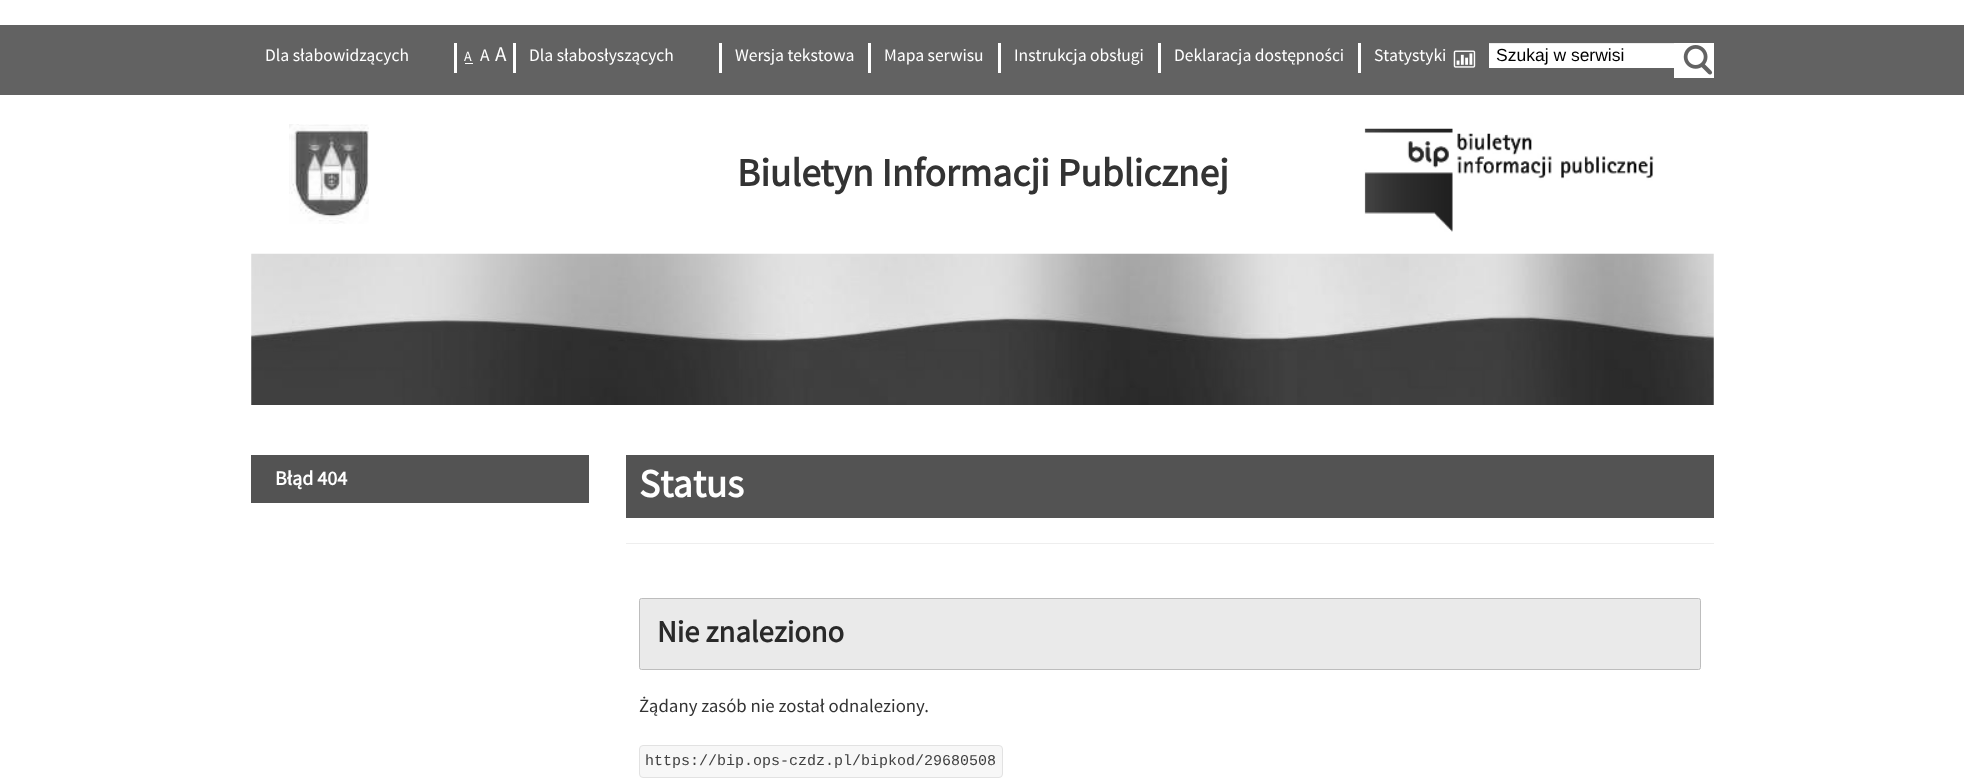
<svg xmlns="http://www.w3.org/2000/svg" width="1964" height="783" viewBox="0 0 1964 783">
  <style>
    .t1 { font: 17.5px Source Sans Pro; fill: #fff; }
    .t2 { font: 14px Source Sans Pro; fill: #fff; }
    .t3 { font: 21px Source Sans Pro; fill: #fff; }
    .t4 { font: 17.5px Liberation Sans; fill: #000; }
    .t5 { font: bold 39.4px Source Sans Pro; fill: #333; }
    .t6 { font: bold 20px Source Sans Pro; fill: #fff; }
    .t7 { font: bold 39.4px Source Sans Pro; fill: #fff; }
    .t8 { font: bold 30.5px Source Sans Pro; fill: #292929; }
    .t9 { font: 18.75px Source Sans Pro; fill: #333; }
    .t10 { font: 15px Liberation Mono; fill: #404040; }
  </style>
  <rect width="100%" height="100%" fill="#fff"/>
  <rect x="0" y="25" width="1964" height="70" fill="#626262"/>
  <rect x="454" y="43" width="3" height="30" fill="#fff"/>
  <text x="265" y="61" class="t1">Dla słabowidzących</text>
  <rect x="513" y="43" width="3" height="30" fill="#fff"/>
  <text x="464" y="61" class="t2">A</text>
  <rect x="465" y="63" width="8" height="1" fill="#fff"/>
  <text x="480" y="61" class="t1">A</text>
  <text x="495" y="61" class="t3">A</text>
  <rect x="719" y="43" width="3" height="30" fill="#fff"/>
  <text x="529" y="61" class="t1">Dla słabosłyszących</text>
  <rect x="868" y="43" width="3" height="30" fill="#fff"/>
  <text x="735" y="61" class="t1">Wersja tekstowa</text>
  <rect x="998" y="43" width="3" height="30" fill="#fff"/>
  <text x="884" y="61" class="t1">Mapa serwisu</text>
  <rect x="1158" y="43" width="3" height="30" fill="#fff"/>
  <text x="1014" y="61" class="t1">Instrukcja obsługi</text>
  <rect x="1358" y="43" width="3" height="30" fill="#fff"/>
  <text x="1174" y="61" class="t1">Deklaracja dostępności</text>
  <text x="1374" y="61" class="t1">Statystyki</text>
  <image x="1453" y="50" width="23" height="18" href="images/1.png"/>
  <rect x="1489" y="44" width="185" height="24" fill="#fff"/>
  <rect x="1489" y="43" width="187" height="1" fill="#ececec"/>
  <text x="1496" y="61" class="t4">Szukaj w serwisi</text>
  <rect x="1674" y="43" width="40" height="35" fill="#fff"/>
  <image x="1683" y="45" width="30" height="30" href="images/2.png"/>
  <image x="289" y="124" width="80" height="100" href="images/3.png"/>
  <text x="737" y="186" class="t5">Biuletyn Informacji Publicznej</text>
  <image x="1364" y="128" width="290" height="104" href="images/4.png"/>
  <image x="251" y="253" width="1463" height="152" href="images/5.png"/>
  <rect x="251" y="455" width="338" height="48" fill="#535353"/>
  <text x="275" y="485" class="t6">Błąd 404</text>
  <rect x="626" y="455" width="1088" height="63" fill="#535353"/>
  <text x="639" y="497" class="t7">Status</text>
  <rect x="626" y="543" width="1088" height="1" fill="#eee"/>
  <rect x="639.5" y="598.5" width="1061" height="71" rx="2" fill="#eaeaea" stroke="#bdbdbd"/>
  <text x="657" y="642" class="t8">Nie znaleziono</text>
  <text x="639" y="712" class="t9">Żądany zasób nie został odnaleziony.</text>
  <rect x="639.5" y="745.5" width="363" height="32" rx="3.5" fill="#f7f7f7" stroke="#e2e2e2"/>
  <text x="645" y="765" class="t10">https://bip.ops-czdz.pl/bipkod/29680508</text>
</svg>
